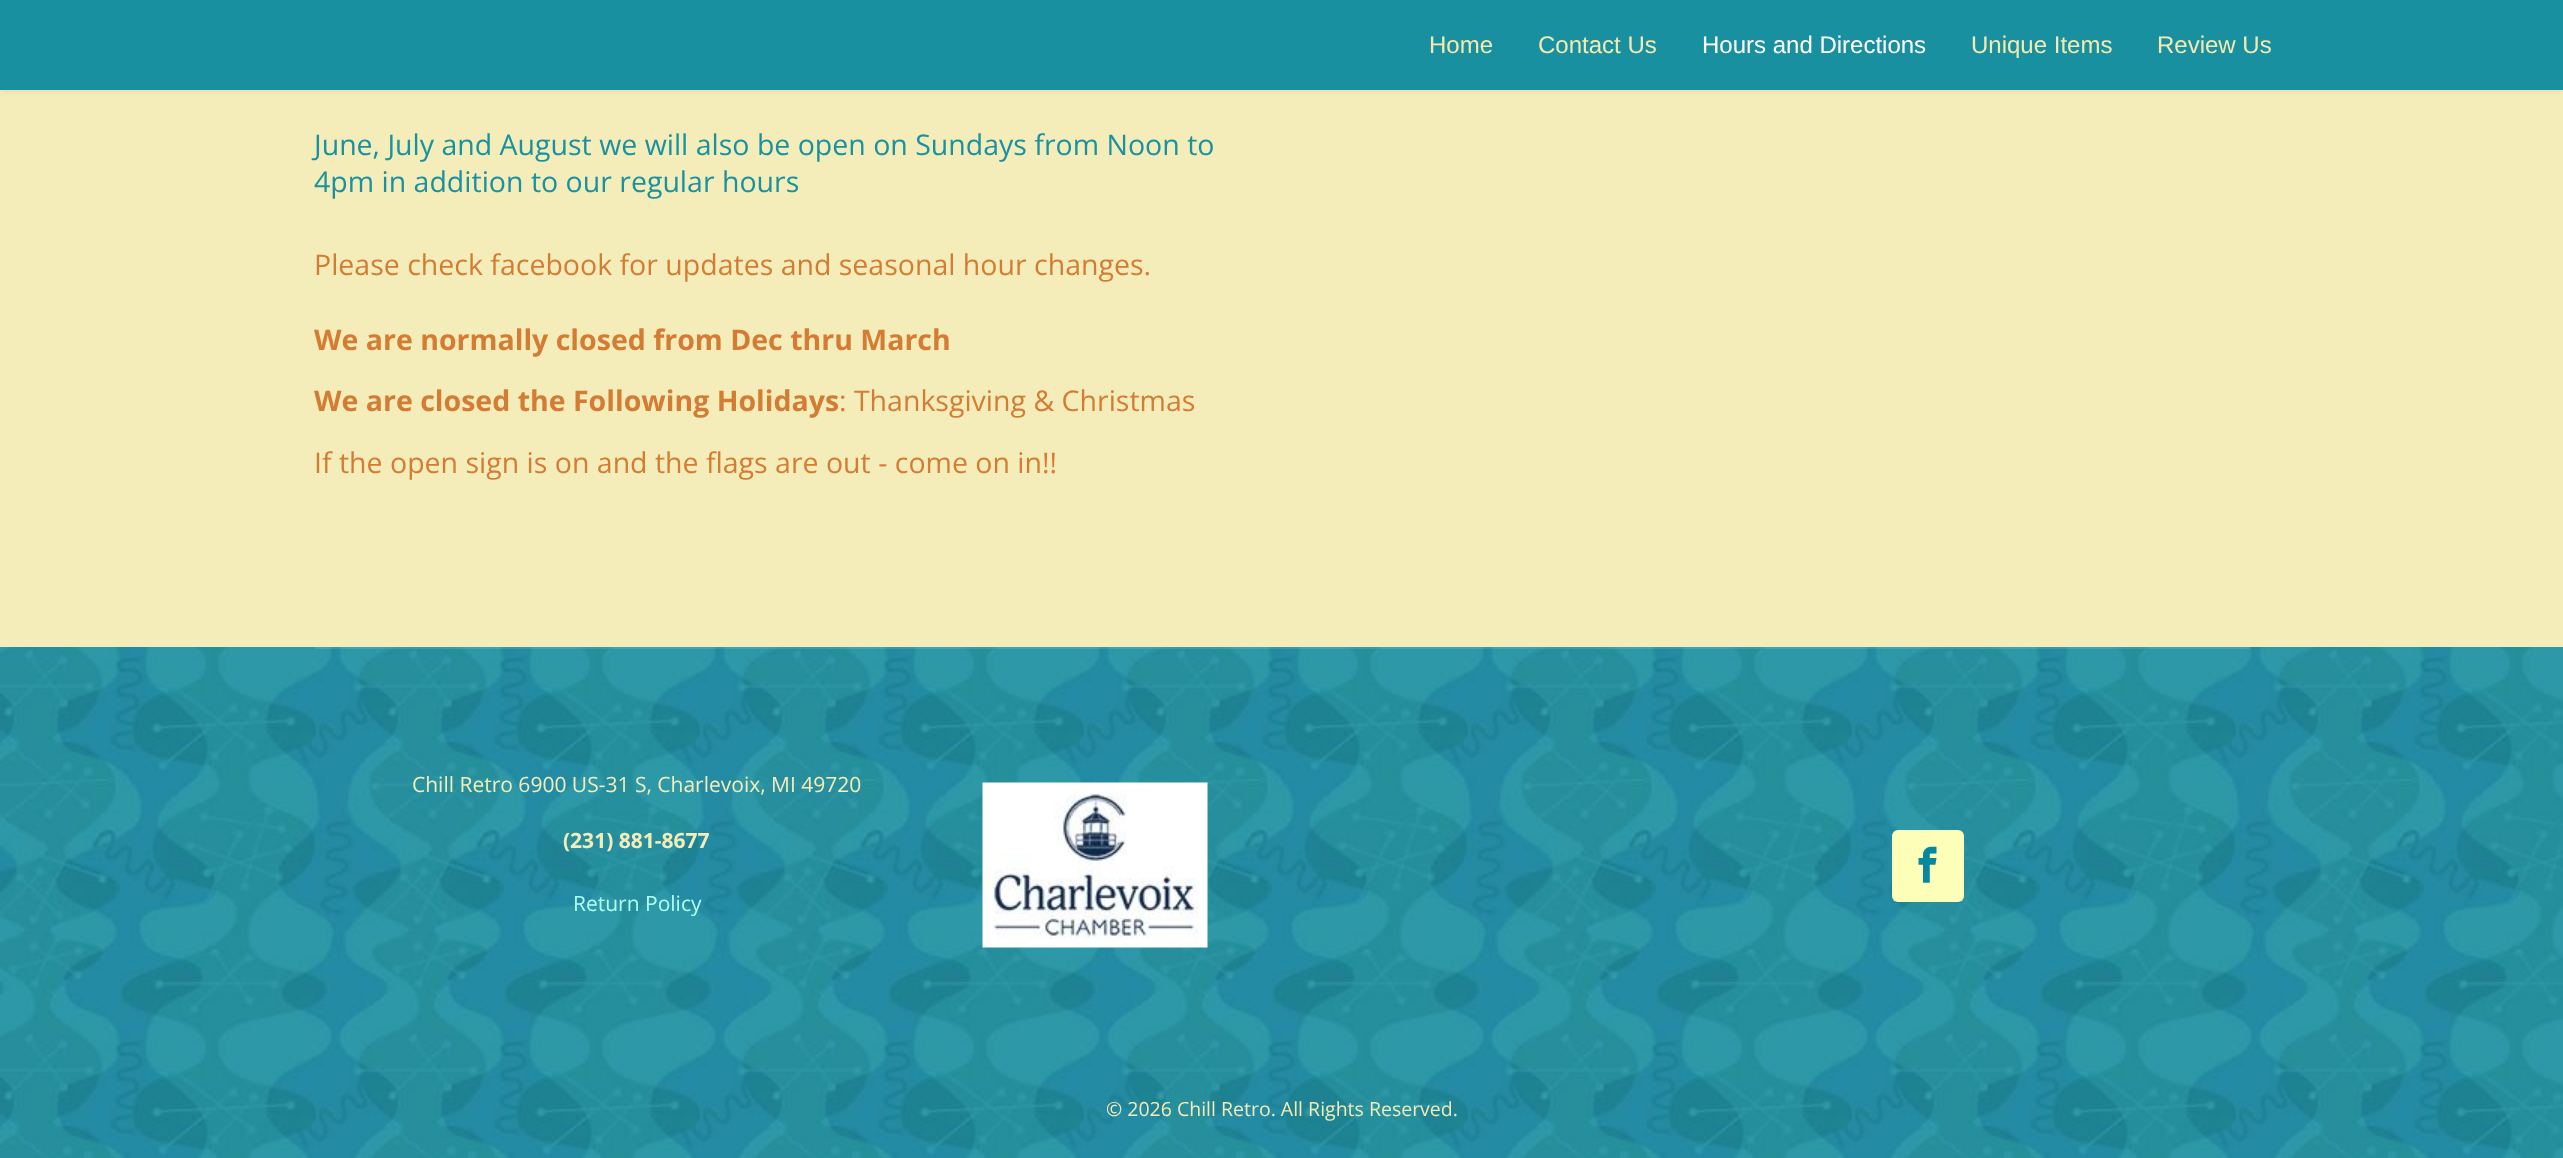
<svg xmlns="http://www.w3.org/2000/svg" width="2563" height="1158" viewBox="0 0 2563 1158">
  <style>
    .t1 { font: 24px Liberation Sans; fill: #f3eab3; }
    .t2 { font: 24px Liberation Sans; fill: #fff; }
    .t3 { font: 28.5px Open Sans; fill: #1991a1; }
    .t4 { font: 28.5px Open Sans; fill: #d47c33; }
    .t5 { font: bold 28.5px Open Sans; fill: #d47c33; }
    .t6 { font: 21px Open Sans; fill: #f4edb9; }
    .t7 { font: bold 21px Open Sans; fill: #f4edb9; }
    .t8 { font: 21px Open Sans; fill: #b1fff1; }
    .t9 { font: 19.5px Open Sans; fill: #f3eab3; }
  </style>
  <rect width="100%" height="100%" fill="#fff"/>
  <rect x="0" y="90" width="2563" height="557" fill="#f4edb9"/>
  <rect x="0" y="0" width="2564" height="90" fill="#0000001a" filter="blur(3px)"/>
  <rect x="0" y="0" width="2563" height="90" fill="#1990a0"/>
  <text x="1429" y="53" class="t1">Home</text>
  <text x="1538" y="53" class="t1">Contact Us</text>
  <text x="1702" y="53" class="t2">Hours and Directions</text>
  <text x="1971" y="53" class="t1">Unique Items</text>
  <text x="2157" y="53" class="t1">Review Us</text>
  <text x="314" y="155" class="t3">June, July and August we will also be open on Sundays from Noon to</text>
  <text x="314" y="192" class="t3">4pm in addition to our regular hours</text>
  <text x="314" y="275" class="t4">Please check facebook for updates and seasonal hour changes.</text>
  <text x="314" y="350" class="t5">We are normally closed from Dec thru March</text>
  <text x="314" y="411" class="t5">We are closed the Following Holidays</text>
  <text x="839" y="411" class="t4">: Thanksgiving &amp; Christmas</text>
  <text x="314" y="473" class="t4">If the open sign is on and the flags are out - come on in!!</text>
  <image x="0" y="647" width="2563" height="511" href="images/1.png"/>
  <rect x="315" y="647" width="1935" height="2" fill="#ffffff1a"/>
  <text x="412" y="792" class="t6">Chill Retro 6900 US-31 S, Charlevoix, MI 49720</text>
  <text x="563" y="848" class="t7">(231) 881-8677</text>
  <text x="573" y="911" class="t8">Return Policy</text>
  <image x="982" y="782" width="226" height="166" href="images/2.png"/>
  <rect x="1892" y="830" width="72" height="72" rx="6" fill="#fdffb8"/>
  <image x="1918" y="846" width="19" height="37" href="images/3.png"/>
  <text x="1106" y="1116" class="t9">© 2026 Chill Retro. All Rights Reserved.</text>
</svg>
